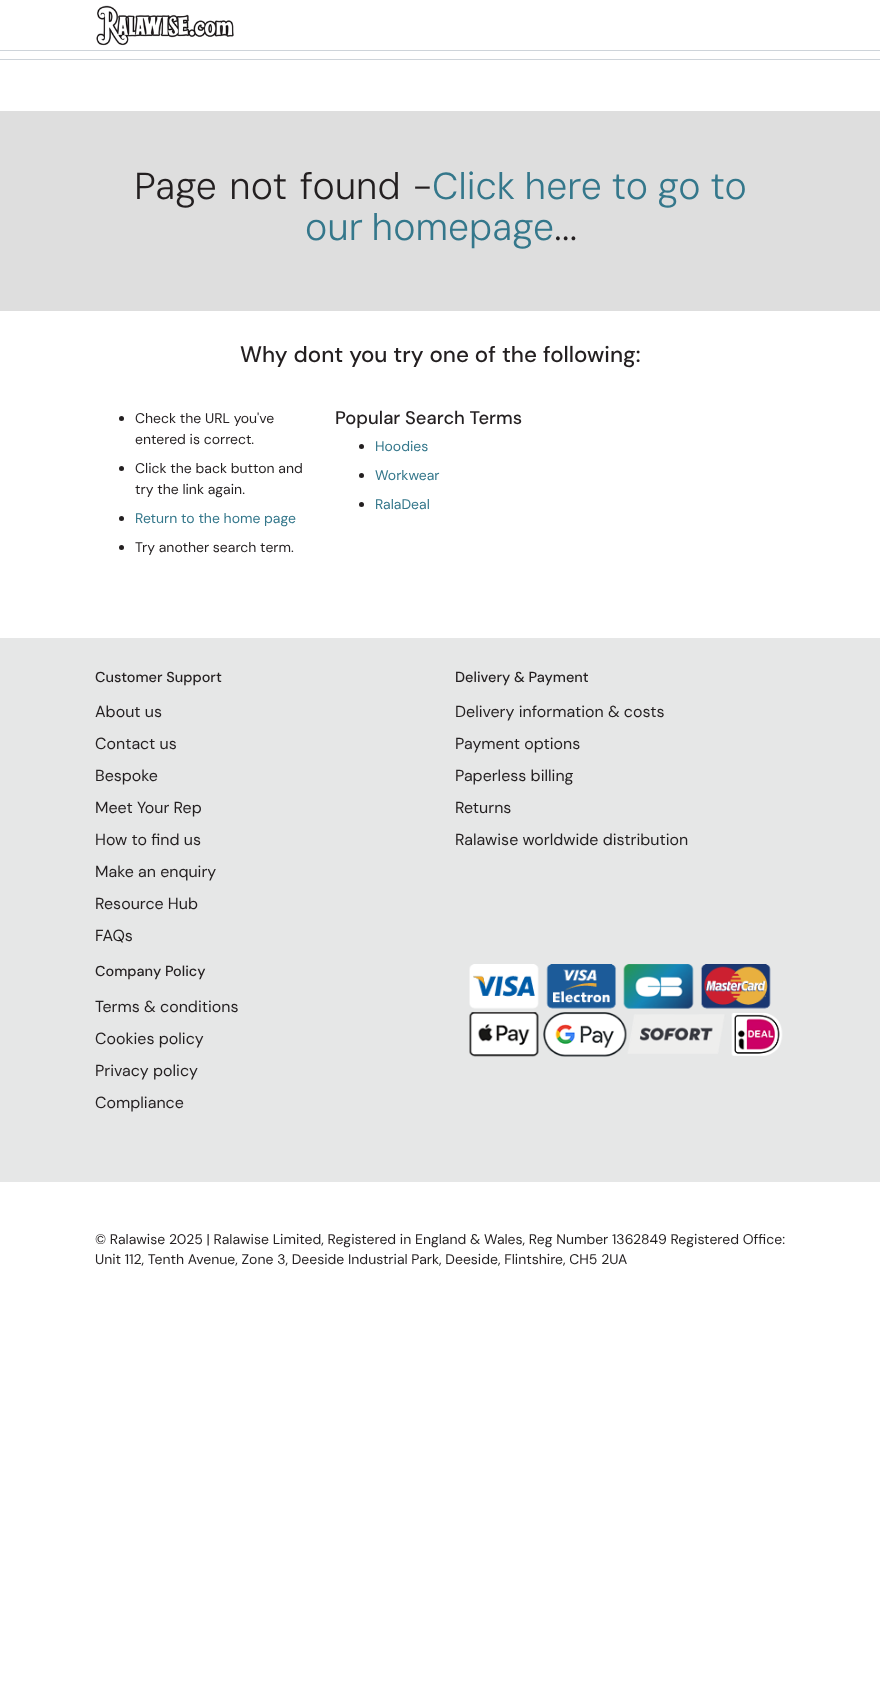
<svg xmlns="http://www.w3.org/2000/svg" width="880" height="1687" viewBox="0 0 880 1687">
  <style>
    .t1 { font: 300 37.5px DM Sans; fill: #231f20; }
    .t2 { font: 300 37.5px DM Sans; fill: #34778b; }
    .t3 { font: 500 22.4px DM Sans; fill: #231f20; }
    .t4 { font: 14px DM Sans; fill: #231f20; }
    .t5 { font: 14px DM Sans; fill: #34778b; }
    .t6 { font: 500 18.4px 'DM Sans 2'; fill: #231f20; }
    .t7 { font: 500 14.5px 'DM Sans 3'; fill: #231f20; }
    .t8 { font: 16px 'DM Sans 2'; fill: #231f20; }
  </style>
  <rect width="100%" height="100%" fill="#fff"/>
  <rect x="0" y="59" width="880" height="1" fill="#ced4da"/>
  <image x="96" y="5" width="138" height="41" href="images/1.png"/>
  <rect x="0" y="50" width="880" height="1" fill="#ced4da"/>
  <rect x="0" y="111" width="880" height="200" fill="#dedede"/>
  <text x="134" y="199" word-spacing="2" class="t1">Page not found -</text>
  <text x="432" y="199" word-spacing="-1" class="t2">Click here to go to</text>
  <text x="305" y="240" word-spacing="-2" class="t2">our homepage</text>
  <text x="554" y="240" class="t1">...</text>
  <text x="240" y="362" word-spacing="0.25" class="t3">Why dont you try one of the following:</text>
  <circle cx="121.5" cy="418.5" r="2.5" fill="#231f20"/>
  <text x="135" y="423" class="t4">Check the URL you've</text>
  <text x="135" y="444" class="t4">entered is correct.</text>
  <circle cx="121.5" cy="468.5" r="2.5" fill="#231f20"/>
  <text x="135" y="473" class="t4">Click the back button and</text>
  <text x="135" y="494" class="t4">try the link again.</text>
  <circle cx="121.5" cy="518.5" r="2.5" fill="#231f20"/>
  <text x="135" y="523" class="t5">Return to the home page</text>
  <circle cx="121.5" cy="547.5" r="2.5" fill="#231f20"/>
  <text x="135" y="552" class="t4">Try another search term.</text>
  <text x="335" y="424" class="t6">Popular Search Terms</text>
  <circle cx="361.5" cy="446.5" r="2.5" fill="#231f20"/>
  <text x="375" y="451" class="t5">Hoodies</text>
  <circle cx="361.5" cy="475.5" r="2.5" fill="#231f20"/>
  <text x="375" y="480" class="t5">Workwear</text>
  <circle cx="361.5" cy="504.5" r="2.5" fill="#231f20"/>
  <text x="375" y="509" class="t5">RalaDeal</text>
  <rect x="0" y="638" width="880" height="544" fill="#e6e7e7"/>
  <text x="95" y="682" class="t7">Customer Support</text>
  <text x="95" y="717" class="t8">About us</text>
  <text x="95" y="749" class="t8">Contact us</text>
  <text x="95" y="781" class="t8">Bespoke</text>
  <text x="95" y="813" class="t8">Meet Your Rep</text>
  <text x="95" y="845" class="t8">How to find us</text>
  <text x="95" y="877" class="t8">Make an enquiry</text>
  <text x="95" y="909" class="t8">Resource Hub</text>
  <text x="95" y="941" class="t8">FAQs</text>
  <text x="455" y="682" class="t7">Delivery &amp; Payment</text>
  <text x="455" y="717" class="t8">Delivery information &amp; costs</text>
  <text x="455" y="749" class="t8">Payment options</text>
  <text x="455" y="781" class="t8">Paperless billing</text>
  <text x="455" y="813" class="t8">Returns</text>
  <text x="455" y="845" class="t8">Ralawise worldwide distribution</text>
  <text x="95" y="976" class="t7">Company Policy</text>
  <text x="95" y="1012" class="t8">Terms &amp; conditions</text>
  <text x="95" y="1044" class="t8">Cookies policy</text>
  <text x="95" y="1076" class="t8">Privacy policy</text>
  <text x="95" y="1108" class="t8">Compliance</text>
  <image x="469" y="964" width="314" height="93" href="images/2.png"/>
  <text x="95" y="1244" class="t4">© Ralawise 2025 | Ralawise Limited, Registered in England &amp; Wales, Reg Number 1362849 Registered Office:</text>
  <text x="95" y="1264" class="t4">Unit 112, Tenth Avenue, Zone 3, Deeside Industrial Park, Deeside, Flintshire, CH5 2UA</text>
</svg>
